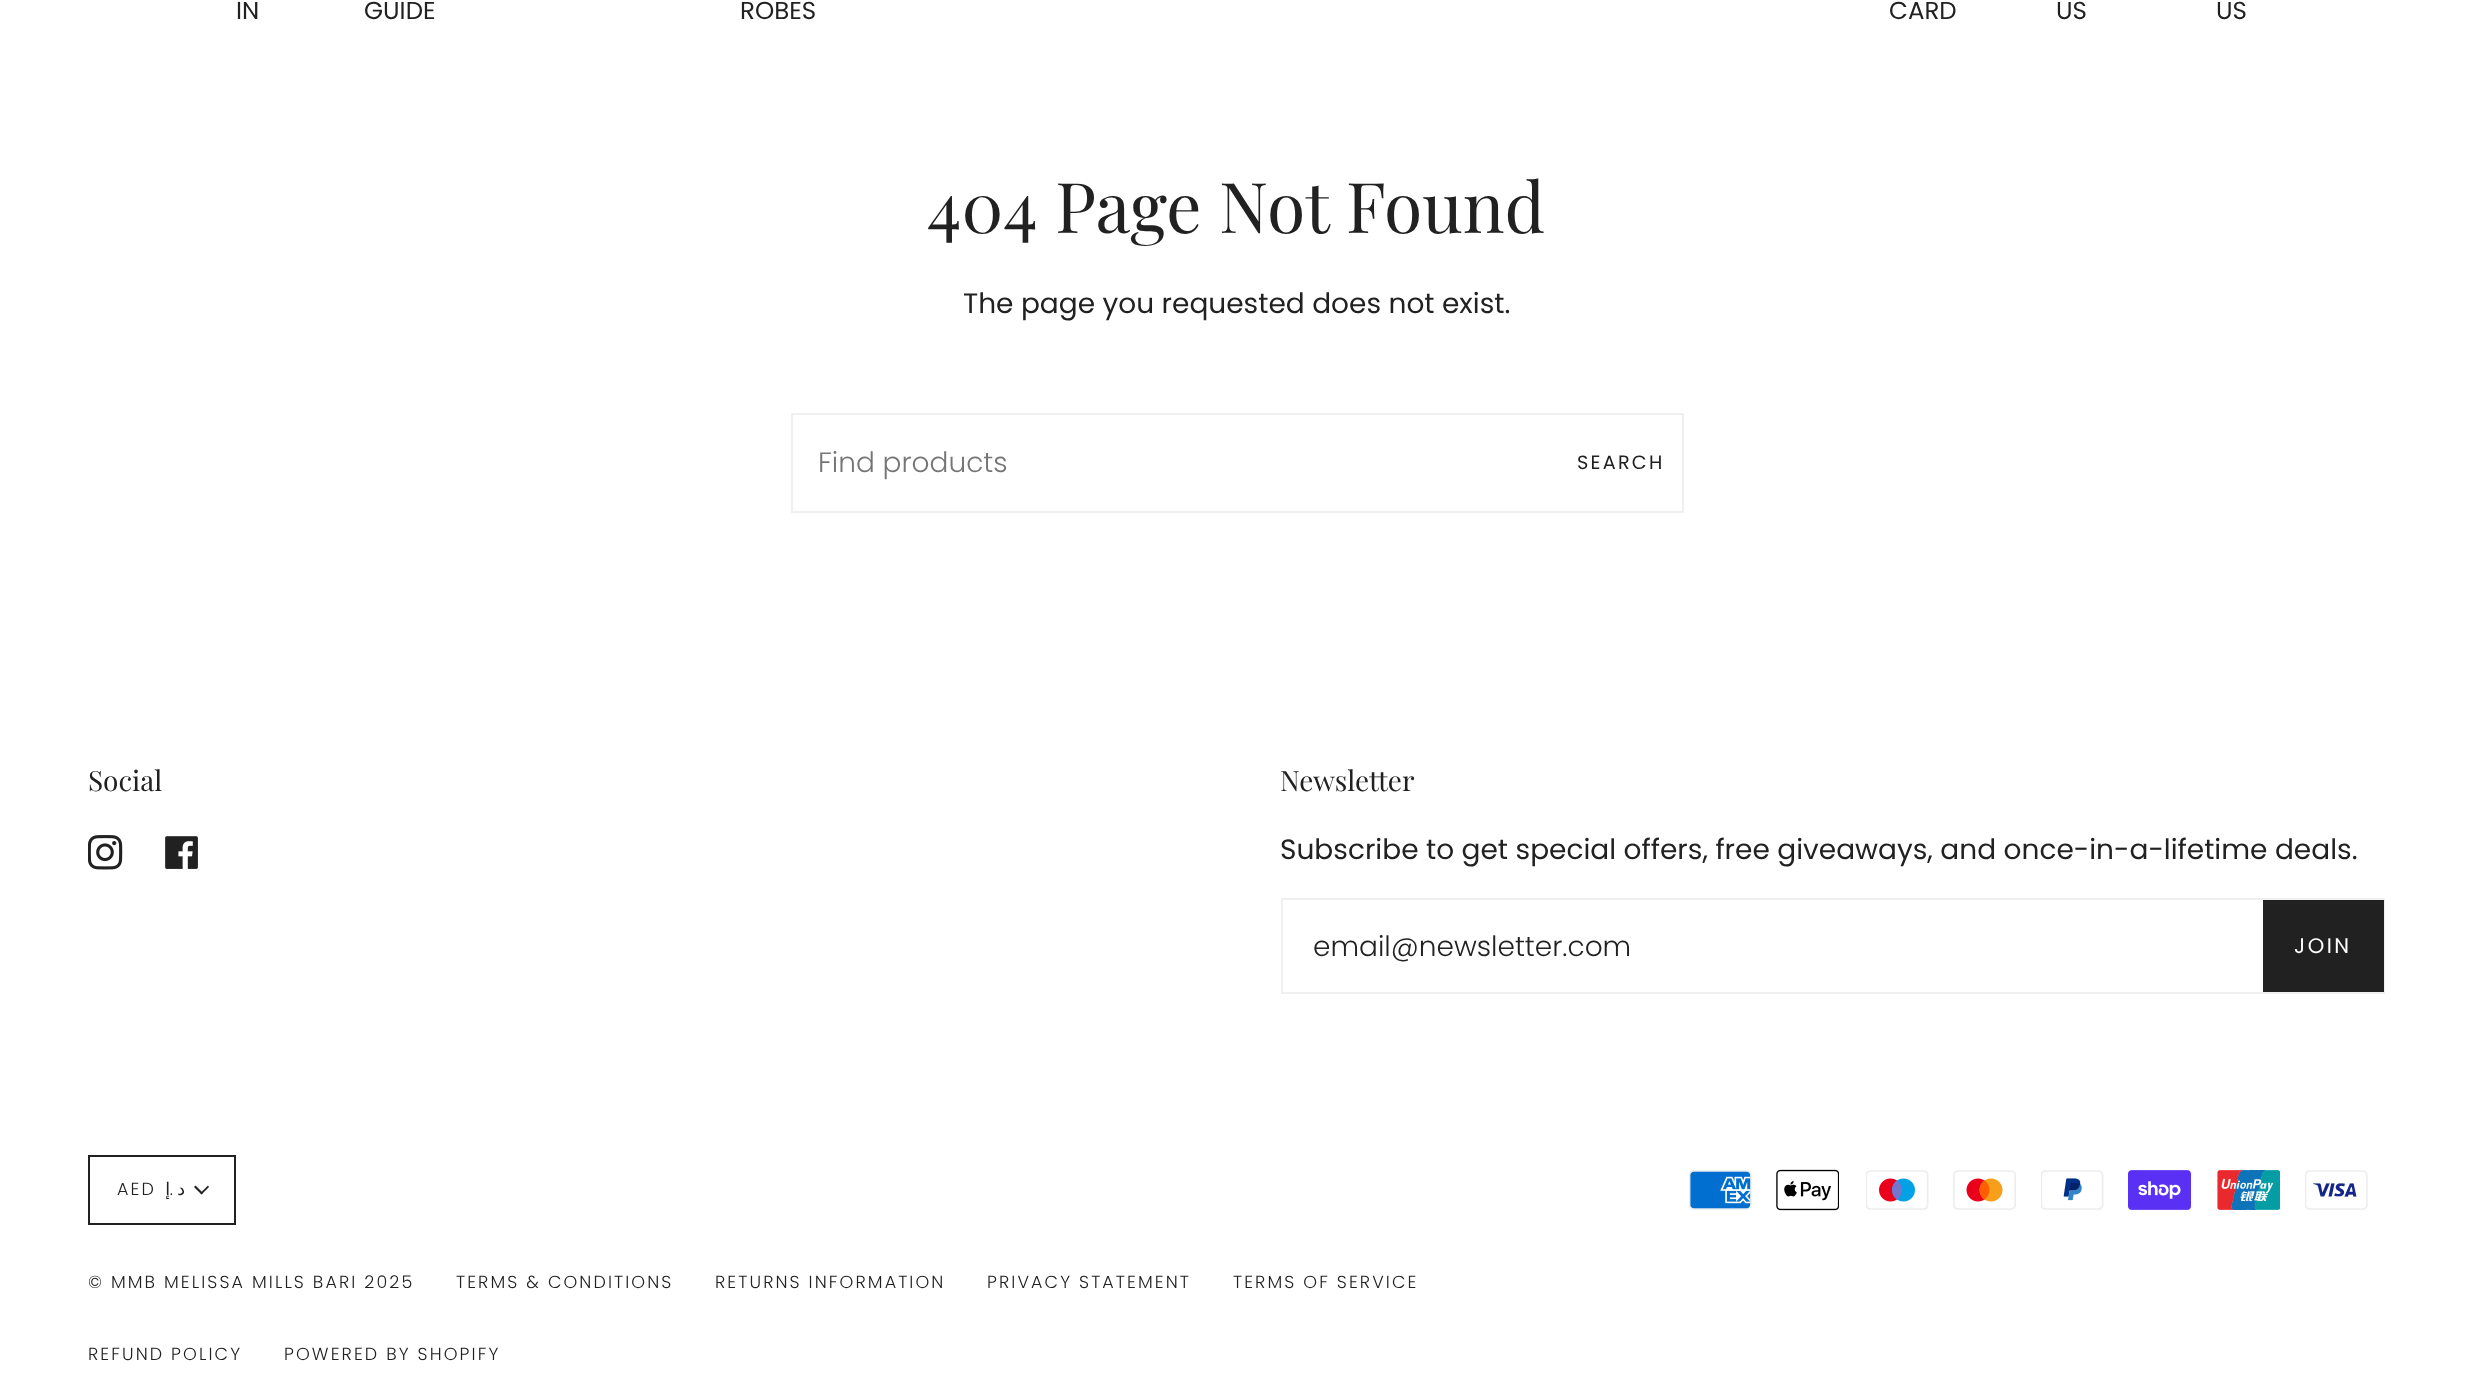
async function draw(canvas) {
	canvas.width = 2472;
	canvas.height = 1394;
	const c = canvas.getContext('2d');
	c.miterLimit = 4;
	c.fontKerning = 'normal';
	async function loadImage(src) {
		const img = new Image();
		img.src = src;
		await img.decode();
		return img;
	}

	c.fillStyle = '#fff';
	c.fillRect(0, 0, 2472, 1394);
	c.font = '24.5px Poppins';
	c.fillStyle = '#212121';
	for (const [text, x, y] of [
		['IN', 236, 19],
		['GUIDE', 364, 19],
		['ROBES', 740, 19],
		['CARD', 1889, 19],
		['US', 2056, 19],
		['US', 2216, 19],
	]) {
		c.fillText(text, x, y);
	}
	c.font = '69.75px Playfair Display';
	c.fillText('404 Page Not Found', 927, 233);
	c.font = '28px Poppins';
	c.fillText('The page you requested does not exist.', 963, 313);
	c.strokeStyle = '#f0f0f0';
	c.lineWidth = 2;
	c.strokeRect(792, 414, 891, 98);
	c.font = '300 28px Poppins';
	c.fillStyle = '#757575';
	c.fillText('Find products', 818, 472);
	c.letterSpacing = '2.25px';
	c.font = '19.25px Poppins';
	c.fillStyle = '#212121';
	c.fillText('SEARCH', 1577, 469);
	c.letterSpacing = '0px';
	c.font = '28px Playfair Display';
	c.fillText('Social', 88, 791);
	c.drawImage(await loadImage('img1.png'), 88, 835, 35, 35);
	c.drawImage(await loadImage('img2.png'), 165, 836, 33, 33);
	c.fillText('Newsletter', 1280, 791);
	c.font = '28px Poppins';
	c.fillText('Subscribe to get special offers, free giveaways, and once-in-a-lifetime deals.', 1280, 859);
	c.strokeRect(1282, 899, 1102, 94);
	c.font = '300 28px Poppins';
	c.fillText('email@newsletter.com', 1313, 956);
	c.fillRect(2263, 900, 121, 92);
	c.letterSpacing = '2.5px';
	c.font = '21px Poppins';
	c.fillStyle = '#fff';
	c.fillText('JOIN', 2294, 953);
	c.strokeStyle = '#212121';
	c.strokeRect(89, 1156, 146, 68);
	c.letterSpacing = '2.1px';
	c.font = '300 17.5px Poppins';
	c.fillStyle = '#212121';
	c.fillText('AED', 117, 1195);
	c.direction = 'rtl';
	c.font = '17.5px DejaVu Sans';
	c.fillText('إ', 170, 1195);
	c.font = '300 17.5px Poppins';
	c.fillText('.', 175, 1195);
	c.font = '17.5px DejaVu Sans';
	c.fillText('د', 185, 1195);
	c.beginPath();
	c.moveTo(200.5, 1193);
	c.lineTo(208, 1185.5);
	c.lineTo(209, 1187);
	c.lineTo(201.5, 1194.5);
	c.closePath();
	c.fill();
	c.beginPath();
	c.moveTo(194, 1187);
	c.lineTo(195.5, 1185.5);
	c.lineTo(203, 1193);
	c.lineTo(201.5, 1194.5);
	c.closePath();
	c.fill();
	c.direction = 'ltr';
	c.font = '300 17.5px Poppins';
	for (const [text, x, y] of [
		['© MMB MELISSA MILLS BARI 2025', 88, 1288],
		['TERMS & CONDITIONS', 456, 1288],
		['RETURNS INFORMATION', 715, 1288],
		['PRIVACY STATEMENT', 987, 1288],
		['TERMS OF SERVICE', 1233, 1288],
		['REFUND POLICY', 88, 1360],
		['POWERED BY SHOPIFY', 284, 1360],
	]) {
		c.fillText(text, x, y);
	}
	c.drawImage(await loadImage('img3.png'), 1689, 1170, 63, 40);
	c.drawImage(await loadImage('img4.png'), 1776, 1169, 63, 42);
	c.drawImage(await loadImage('img5.png'), 1866, 1170, 63, 40);
	c.drawImage(await loadImage('img6.png'), 1953, 1170, 63, 40);
	c.drawImage(await loadImage('img7.png'), 2041, 1170, 63, 40);
	c.drawImage(await loadImage('img8.png'), 2128, 1170, 63, 40);
	c.drawImage(await loadImage('img9.png'), 2217, 1170, 63, 40);
	c.drawImage(await loadImage('img10.png'), 2305, 1170, 63, 40);
}

draw(document.querySelector('canvas'));
